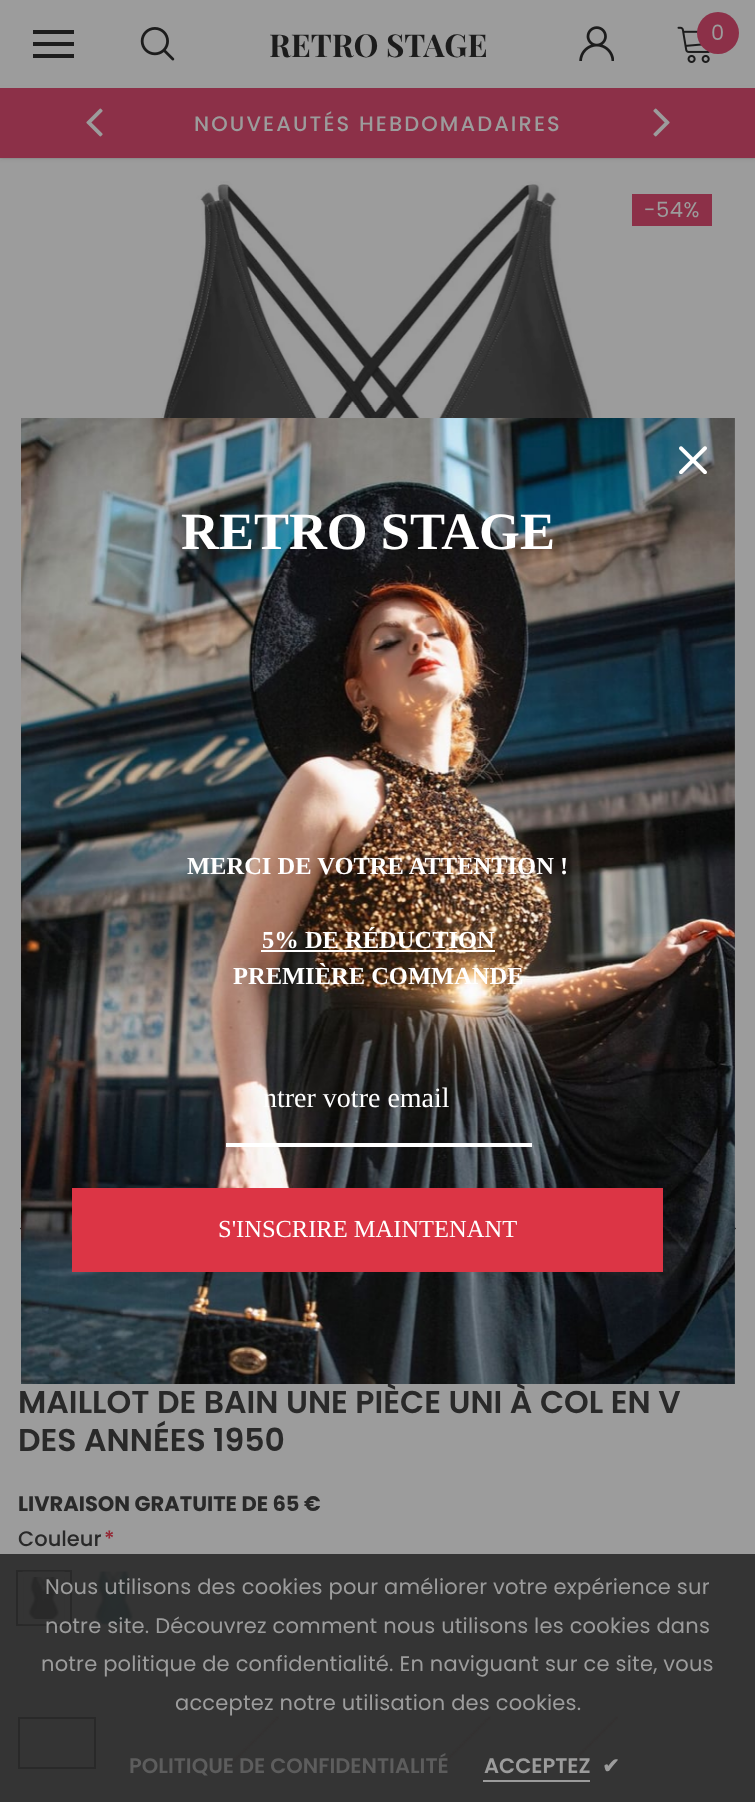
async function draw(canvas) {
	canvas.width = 755;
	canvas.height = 1802;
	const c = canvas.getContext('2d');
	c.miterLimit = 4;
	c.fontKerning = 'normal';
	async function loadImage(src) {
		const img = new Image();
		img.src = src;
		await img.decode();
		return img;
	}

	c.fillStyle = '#9c9c9c';
	c.fillRect(0, 0, 755, 1802);
	c.fillStyle = '#343434';
	c.fillRect(0, 1554, 755, 248);
	c.drawImage(await loadImage('img1.png'), 677, 26, 33, 37);
	c.fillStyle = '#8c3048';
	c.beginPath();
	c.arc(718, 33, 21, 0, 2 * Math.PI);
	c.fill();
	c.font = '21px Poppins';
	c.fillStyle = '#9c9c9c';
	c.fillText('0', 711, 40);
	c.fillStyle = '#1c1c1c1a';
	c.filter = 'blur(2px)';
	c.beginPath();
	c.rect(0, 89, 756, 70);
	c.fill();
	c.filter = 'none';
	c.strokeStyle = '#1c1c1c0f';
	c.lineWidth = 2;
	c.strokeRect(-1, 87, 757, 71);
	for (const [x, y, w, h, color] of [
		[0, 86, 755, 2, '#9c9c9c'],
		[33, 42, 41, 4, '#1c1c1c'],
		[33, 30, 41, 4, '#1c1c1c'],
		[33, 54, 41, 4, '#1c1c1c'],
	]) {
		c.fillStyle = color;
		c.fillRect(x, y, w, h);
	}
	c.drawImage(await loadImage('img2.png'), 140, 27, 35, 34);
	c.font = 'bold 31.5px Playfair Display';
	c.fillText('RETRO STAGE', 269, 57);
	c.drawImage(await loadImage('img3.png'), 579, 26, 35, 35);
	c.fillStyle = '#8c3048';
	c.fillRect(0, 88, 755, 70);
	c.drawImage(await loadImage('img4.png'), 86, 108, 17, 29);
	c.letterSpacing = '2.1px';
	c.font = '500 21px Poppins';
	c.fillStyle = '#9c9c9c';
	c.fillText('NOUVEAUTÉS HEBDOMADAIRES', 194, 131);
	c.drawImage(await loadImage('img5.png'), 653, 108, 17, 29);
	c.drawImage(await loadImage('img6.png'), 55, 181, 574, 237);
	c.fillStyle = '#8c3048';
	c.fillRect(632, 194, 80, 32);
	c.letterSpacing = '0.5px';
	c.font = '21px Poppins';
	c.fillStyle = '#9c9c9c';
	c.fillText('-54%', 644, 217);
	c.fillStyle = '#1c1c1c';
	c.beginPath();
	c.moveTo(20, 1228.5);
	c.lineTo(39.5, 1248);
	c.lineTo(39.5, 1243.5);
	c.lineTo(24.5, 1228.5);
	c.lineTo(39.5, 1213.5);
	c.lineTo(39.5, 1209);
	c.closePath();
	c.fill();
	c.beginPath();
	c.moveTo(733.5, 1226);
	c.lineTo(716.5, 1209);
	c.lineTo(716.5, 1213.5);
	c.lineTo(731.5, 1228.5);
	c.lineTo(716.5, 1243.5);
	c.lineTo(716.5, 1248);
	c.lineTo(736, 1228.5);
	c.closePath();
	c.fill();
	c.letterSpacing = '0px';
	c.font = '600 31.5px Poppins';
	c.fillStyle = '#292929';
	c.fillText('MAILLOT DE BAIN UNE PIÈCE UNI À COL EN V', 18, 1413);
	c.fillText('DES ANNÉES 1950', 18, 1451);
	c.font = 'bold 21px Poppins';
	c.fillText('LIVRAISON GRATUITE DE 65 €', 18, 1511);
	c.font = '500 21px Poppins';
	c.fillText('Couleur', 18, 1546);
	c.fillStyle = '#952734';
	c.fillText('*', 104, 1546);
	c.strokeStyle = '#292929';
	c.strokeRect(17, 1571, 54, 54);
	c.drawImage(await loadImage('img7.png'), 22, 1571, 44, 54);
	c.strokeStyle = '#343434';
	c.lineWidth = 5;
	c.strokeRect(20.5, 1574.5, 47, 47);
	c.drawImage(await loadImage('img8.png'), 87, 1571, 54, 54);
	c.strokeStyle = '#292929';
	c.lineWidth = 2;
	c.strokeRect(19, 1718, 76, 50);
	c.drawImage(await loadImage('img9.png'), 225, 1716, 54, 54);
	c.drawImage(await loadImage('img10.png'), 437, 1716, 54, 54);
	c.drawImage(await loadImage('img11.png'), 565, 1716, 53, 54);
	c.letterSpacing = '0.2px';
	c.font = '21px Poppins';
	c.fillStyle = '#9c9c9c';
	for (const [text, x, y] of [
		['Nous utilisons des cookies pour améliorer votre expérience sur', 45, 1594],
		['notre site. Découvrez comment nous utilisons les cookies dans', 45, 1633],
		['notre politique de confidentialité. En naviguant sur ce site, vous', 41, 1671],
		['acceptez notre utilisation des cookies.', 175, 1710],
	]) {
		c.fillText(text, x, y);
	}
	c.letterSpacing = '0px';
	c.font = '600 21px Poppins';
	c.fillStyle = '#5d5d5d';
	c.fillText('POLITIQUE DE CONFIDENTIALITÉ', 129, 1773);
	c.fillStyle = '#9c9c9c';
	c.fillText('ACCEPTEZ', 484, 1773);
	c.fillRect(483, 1780, 107, 2);
	c.font = 'bold 21px DejaVu Sans';
	c.fillText('✔', 602, 1773);
	c.drawImage(await loadImage('img13.png'), 21, 418, 714, 966);
	c.drawImage(await loadImage('img12.png'), 679, 446, 28, 28);
	c.font = 'bold 52.5px Liberation Serif';
	c.fillStyle = '#fff';
	c.fillText('RETRO STAGE', 181, 549);
	c.font = 'bold 24.5px Liberation Serif';
	c.fillText('MERCI DE VOTRE ATTENTION !', 187, 874);
	c.fillText('5% DE RÉDUCTION', 262, 948);
	c.fillRect(261, 950, 234, 2);
	c.fillText('PREMIÈRE COMMANDE', 233, 984);
	c.fillRect(226, 1143, 306, 4);
	c.font = '28px Liberation Serif';
	c.fillText('ntrer votre email', 263, 1107);
	c.fillStyle = '#dc3545';
	c.fillRect(72, 1188, 591, 84);
	c.font = '24.5px Liberation Serif';
	c.fillStyle = '#fff';
	c.fillText('S\'INSCRIRE MAINTENANT', 218, 1237);
}

draw(document.querySelector('canvas'));
